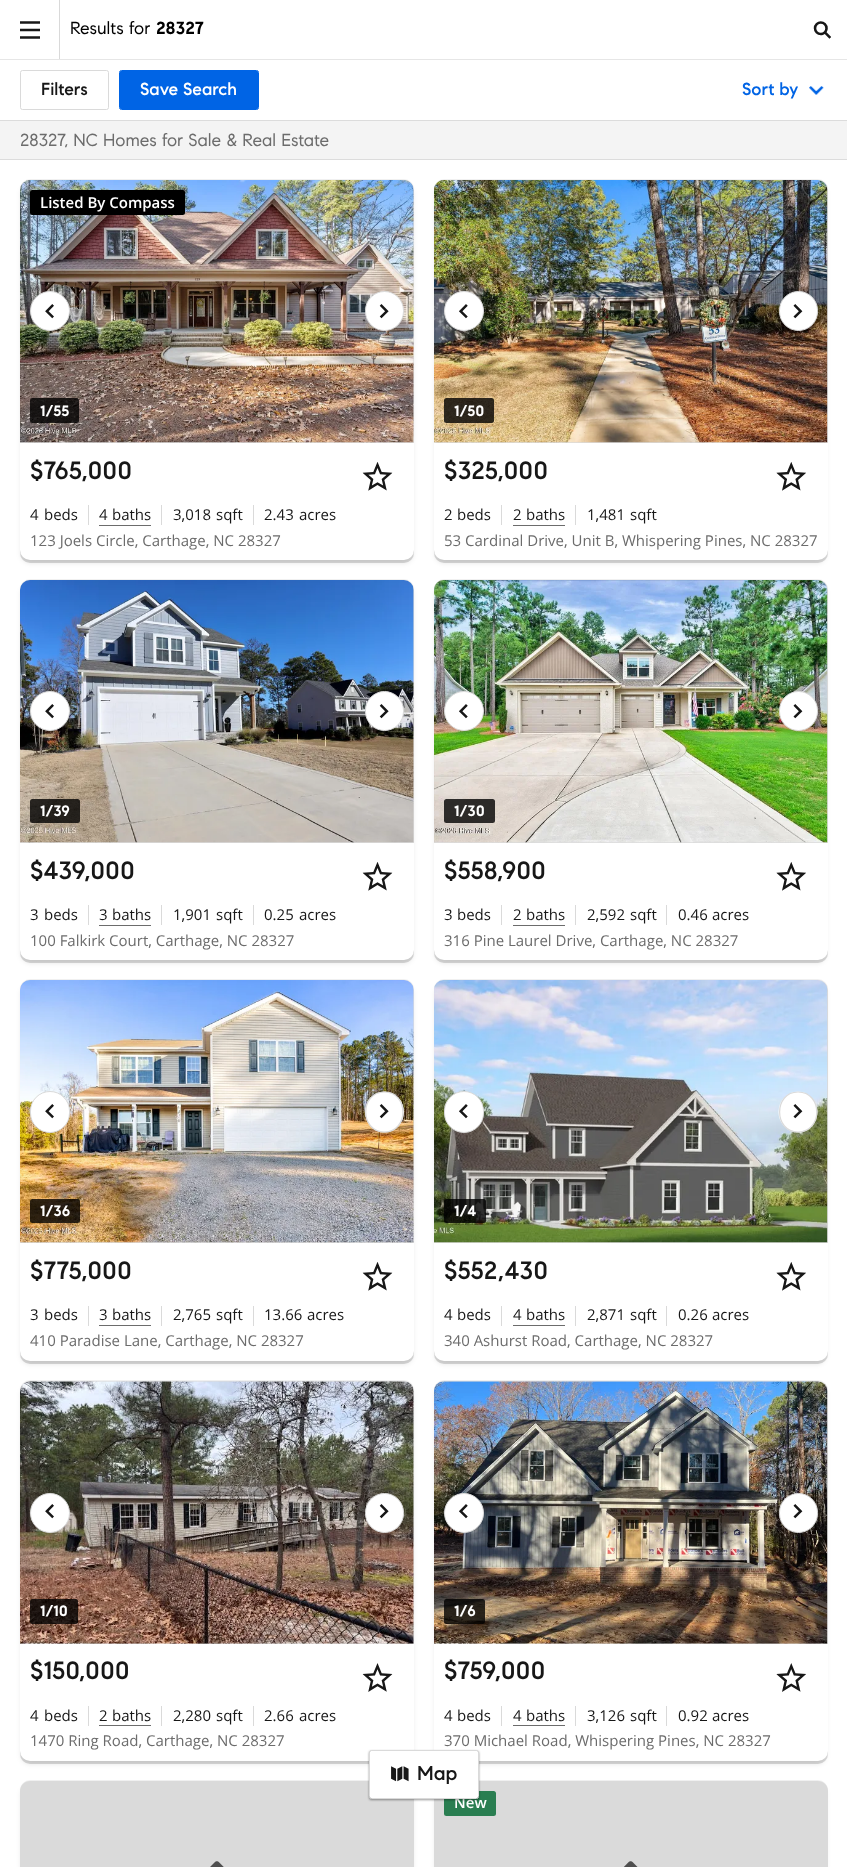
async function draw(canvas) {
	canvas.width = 847;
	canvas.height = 1867;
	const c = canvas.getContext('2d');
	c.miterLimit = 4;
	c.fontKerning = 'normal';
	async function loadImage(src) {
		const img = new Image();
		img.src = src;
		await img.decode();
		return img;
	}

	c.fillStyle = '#fff';
	c.fillRect(0, 0, 847, 1867);
	c.fillStyle = '#e6e6e6';
	c.fillRect(0, 59, 847, 1);
	c.fillStyle = '#d9d9d9';
	c.fillRect(59, 0, 1, 59);
	c.drawImage(await loadImage('img1.png'), 20, 21, 20, 18);
	c.font = '17.5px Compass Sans';
	c.fillStyle = '#000';
	c.fillText('Results for', 70, 34);
	c.font = 'bold 17.5px Compass Sans';
	c.fillText('28327', 156, 34);
	c.drawImage(await loadImage('img2.png'), 813, 21, 18, 18);
	c.beginPath();
	c.roundRect(20.5, 70.5, 88, 39, 2);
	c.strokeStyle = '#dadada';
	c.stroke();
	c.font = '500 17.5px Compass Sans';
	c.fillStyle = '#171717';
	c.fillText('Filters', 41, 95);
	c.fillStyle = '#0064e5';
	c.beginPath();
	c.roundRect(120, 71, 138, 38, 1);
	c.fill();
	c.beginPath();
	c.roundRect(119.5, 70.5, 139, 39, 2);
	c.strokeStyle = '#0064e5';
	c.stroke();
	c.fillStyle = '#fff';
	c.fillText('Save Search', 140, 95);
	c.fillStyle = '#0064e5';
	c.fillText('Sort by', 742, 95);
	c.drawImage(await loadImage('img3.png'), 809, 86, 15, 9);
	for (const [x, y, w, h, color] of [
		[0, 121, 847, 38, '#f4f4f4'],
		[0, 120, 847, 1, '#dcdcdc'],
		[0, 159, 847, 1, '#dcdcdc'],
	]) {
		c.fillStyle = color;
		c.fillRect(x, y, w, h);
	}
	c.font = '17.5px Compass Sans';
	c.fillStyle = '#6c6c6c';
	c.fillText('28327, NC Homes for Sale & Real Estate', 20, 146);
	c.fillStyle = '#0000000f';
	c.filter = 'blur(0.5px)';
	c.beginPath();
	c.roundRect(20, 179, 394, 380, 10);
	c.fill();
	c.filter = 'none';
	c.fillStyle = '#00000024';
	c.filter = 'blur(0.5px)';
	c.beginPath();
	c.roundRect(20, 183, 394, 380, 10);
	c.fill();
	c.filter = 'none';
	c.fillStyle = '#0000001a';
	c.filter = 'blur(2.5px)';
	c.beginPath();
	c.roundRect(21, 185, 392, 378, 9);
	c.fill();
	c.filter = 'none';
	c.fillStyle = '#fff';
	c.beginPath();
	c.roundRect(20, 180, 394, 380, 10);
	c.fill();
	c.fillStyle = '#dadada';
	c.beginPath();
	c.roundRect(20, 180, 394, 263, [10, 10, 0, 0]);
	c.fill();
	c.drawImage(await loadImage('img4.png'), 20, 180, 394, 263);
	c.fillStyle = '#000';
	c.beginPath();
	c.roundRect(30, 190, 155, 25, 2.5);
	c.fill();
	c.font = '600 15px Open Sans';
	c.fillStyle = '#fff';
	c.fillText('Listed By Compass', 40, 208);
	c.beginPath();
	c.arc(50, 311, 19.5, 0, 2 * Math.PI);
	c.fill();
	c.strokeStyle = '#dadada';
	c.stroke();
	c.drawImage(await loadImage('img5.png'), 45, 304, 9, 15);
	c.beginPath();
	c.roundRect(365.5, 291.5, 38, 39, 19);
	c.fill();
	c.stroke();
	c.drawImage(await loadImage('img6.png'), 379, 304, 10, 15);
	c.fillStyle = '#000000cc';
	c.beginPath();
	c.roundRect(30, 398, 49, 25, 2.5);
	c.fill();
	c.font = 'bold 15px Compass Sans';
	c.fillStyle = '#fff';
	c.fillText('1/55', 40, 416);
	c.font = '500 25px Compass Sans';
	c.fillStyle = '#171717';
	c.fillText('$765,000', 30, 479);
	c.drawImage(await loadImage('img7.png'), 362, 462, 31, 29);
	c.font = '15px Open Sans';
	c.fillText('4', 30, 520);
	c.fillText('beds', 44, 520);
	c.fillStyle = '#dadada';
	c.fillRect(88, 505, 1, 20);
	c.fillStyle = '#6c6c6c';
	c.fillRect(99, 525, 52, 1);
	c.fillStyle = '#171717';
	c.fillText('4', 99, 520);
	c.fillText('baths', 112, 520);
	c.fillStyle = '#dadada';
	c.fillRect(161, 505, 1, 20);
	c.fillStyle = '#171717';
	c.fillText('3,018', 173, 520);
	c.fillText('sqft', 216, 520);
	c.fillStyle = '#dadada';
	c.fillRect(253, 505, 1, 20);
	c.fillStyle = '#171717';
	c.fillText('2.43', 264, 520);
	c.fillText('acres', 299, 520);
	c.fillStyle = '#6c6c6c';
	c.fillText('123 Joels Circle, Carthage, NC 28327', 30, 546);
	c.fillStyle = '#0000000f';
	c.filter = 'blur(0.5px)';
	c.beginPath();
	c.roundRect(434, 179, 394, 380, 10);
	c.fill();
	c.filter = 'none';
	c.fillStyle = '#00000024';
	c.filter = 'blur(0.5px)';
	c.beginPath();
	c.roundRect(434, 183, 394, 380, 10);
	c.fill();
	c.filter = 'none';
	c.fillStyle = '#0000001a';
	c.filter = 'blur(2.5px)';
	c.beginPath();
	c.roundRect(435, 185, 391, 378, 9);
	c.fill();
	c.filter = 'none';
	c.fillStyle = '#fff';
	c.beginPath();
	c.roundRect(434, 180, 394, 380, 10);
	c.fill();
	c.fillStyle = '#dadada';
	c.beginPath();
	c.roundRect(434, 180, 394, 263, [10, 10, 0, 0]);
	c.fill();
	c.drawImage(await loadImage('img8.png'), 434, 180, 394, 263);
	c.fillStyle = '#fff';
	c.beginPath();
	c.arc(464, 311, 19.5, 0, 2 * Math.PI);
	c.fill();
	c.stroke();
	c.drawImage(await loadImage('img9.png'), 459, 304, 9, 15);
	c.beginPath();
	c.roundRect(779.5, 291.5, 38, 39, 19);
	c.fill();
	c.stroke();
	c.drawImage(await loadImage('img10.png'), 793, 304, 10, 15);
	c.fillStyle = '#000000cc';
	c.beginPath();
	c.roundRect(444, 398, 50, 25, 2.5);
	c.fill();
	c.font = 'bold 15px Compass Sans';
	c.fillStyle = '#fff';
	c.fillText('1/50', 454, 416);
	c.font = '500 25px Compass Sans';
	c.fillStyle = '#171717';
	c.fillText('$325,000', 444, 479);
	c.drawImage(await loadImage('img11.png'), 776, 462, 30, 29);
	c.font = '15px Open Sans';
	c.fillText('2', 444, 520);
	c.fillText('beds', 457, 520);
	c.fillStyle = '#dadada';
	c.fillRect(501, 505, 1, 20);
	c.fillStyle = '#6c6c6c';
	c.fillRect(513, 525, 52, 1);
	c.fillStyle = '#171717';
	c.fillText('2', 513, 520);
	c.fillText('baths', 526, 520);
	c.fillStyle = '#dadada';
	c.fillRect(575, 505, 1, 20);
	c.fillStyle = '#171717';
	c.fillText('1,481', 587, 520);
	c.fillText('sqft', 630, 520);
	c.fillStyle = '#6c6c6c';
	c.fillText('53 Cardinal Drive, Unit B, Whispering Pines, NC 28327', 444, 546);
	c.fillStyle = '#0000000f';
	c.filter = 'blur(0.5px)';
	c.beginPath();
	c.roundRect(20, 579, 394, 380, 10);
	c.fill();
	c.filter = 'none';
	c.fillStyle = '#00000024';
	c.filter = 'blur(0.5px)';
	c.beginPath();
	c.roundRect(20, 583, 394, 380, 10);
	c.fill();
	c.filter = 'none';
	c.fillStyle = '#0000001a';
	c.filter = 'blur(2.5px)';
	c.beginPath();
	c.roundRect(21, 585, 392, 378, 9);
	c.fill();
	c.filter = 'none';
	c.fillStyle = '#fff';
	c.beginPath();
	c.roundRect(20, 580, 394, 380, 10);
	c.fill();
	c.fillStyle = '#dadada';
	c.beginPath();
	c.roundRect(20, 580, 394, 263, [10, 10, 0, 0]);
	c.fill();
	c.drawImage(await loadImage('img12.png'), 20, 580, 394, 263);
	c.fillStyle = '#fff';
	c.beginPath();
	c.arc(50, 711, 19.5, 0, 2 * Math.PI);
	c.fill();
	c.stroke();
	c.drawImage(await loadImage('img5.png'), 45, 704, 9, 15);
	c.beginPath();
	c.roundRect(365.5, 691.5, 38, 39, 19);
	c.fill();
	c.stroke();
	c.drawImage(await loadImage('img6.png'), 379, 704, 10, 15);
	c.fillStyle = '#000000cc';
	c.beginPath();
	c.roundRect(30, 799, 50, 24, 2.5);
	c.fill();
	c.font = 'bold 15px Compass Sans';
	c.fillStyle = '#fff';
	c.fillText('1/39', 40, 816);
	c.font = '500 25px Compass Sans';
	c.fillStyle = '#171717';
	c.fillText('$439,000', 30, 879);
	c.drawImage(await loadImage('img7.png'), 362, 862, 31, 29);
	c.font = '15px Open Sans';
	c.fillText('3', 30, 920);
	c.fillText('beds', 44, 920);
	c.fillStyle = '#dadada';
	c.fillRect(88, 905, 1, 20);
	c.fillStyle = '#6c6c6c';
	c.fillRect(99, 925, 52, 1);
	c.fillStyle = '#171717';
	c.fillText('3', 99, 920);
	c.fillText('baths', 112, 920);
	c.fillStyle = '#dadada';
	c.fillRect(161, 905, 1, 20);
	c.fillStyle = '#171717';
	c.fillText('1,901', 173, 920);
	c.fillText('sqft', 216, 920);
	c.fillStyle = '#dadada';
	c.fillRect(253, 905, 1, 20);
	c.fillStyle = '#171717';
	c.fillText('0.25', 264, 920);
	c.fillText('acres', 299, 920);
	c.fillStyle = '#6c6c6c';
	c.fillText('100 Falkirk Court, Carthage, NC 28327', 30, 946);
	c.fillStyle = '#0000000f';
	c.filter = 'blur(0.5px)';
	c.beginPath();
	c.roundRect(434, 579, 394, 380, 10);
	c.fill();
	c.filter = 'none';
	c.fillStyle = '#00000024';
	c.filter = 'blur(0.5px)';
	c.beginPath();
	c.roundRect(434, 583, 394, 380, 10);
	c.fill();
	c.filter = 'none';
	c.fillStyle = '#0000001a';
	c.filter = 'blur(2.5px)';
	c.beginPath();
	c.roundRect(435, 585, 391, 378, 9);
	c.fill();
	c.filter = 'none';
	c.fillStyle = '#fff';
	c.beginPath();
	c.roundRect(434, 580, 394, 380, 10);
	c.fill();
	c.fillStyle = '#dadada';
	c.beginPath();
	c.roundRect(434, 580, 394, 263, [10, 10, 0, 0]);
	c.fill();
	c.drawImage(await loadImage('img13.png'), 434, 580, 394, 263);
	c.fillStyle = '#fff';
	c.beginPath();
	c.arc(464, 711, 19.5, 0, 2 * Math.PI);
	c.fill();
	c.stroke();
	c.drawImage(await loadImage('img9.png'), 459, 704, 9, 15);
	c.beginPath();
	c.roundRect(779.5, 691.5, 38, 39, 19);
	c.fill();
	c.stroke();
	c.drawImage(await loadImage('img10.png'), 793, 704, 10, 15);
	c.fillStyle = '#000000cc';
	c.beginPath();
	c.roundRect(444, 799, 51, 24, 2.5);
	c.fill();
	c.font = 'bold 15px Compass Sans';
	c.fillStyle = '#fff';
	c.fillText('1/30', 454, 816);
	c.font = '500 25px Compass Sans';
	c.fillStyle = '#171717';
	c.fillText('$558,900', 444, 879);
	c.drawImage(await loadImage('img11.png'), 776, 862, 30, 29);
	c.font = '15px Open Sans';
	c.fillText('3', 444, 920);
	c.fillText('beds', 457, 920);
	c.fillStyle = '#dadada';
	c.fillRect(501, 905, 1, 20);
	c.fillStyle = '#6c6c6c';
	c.fillRect(513, 925, 52, 1);
	c.fillStyle = '#171717';
	c.fillText('2', 513, 920);
	c.fillText('baths', 526, 920);
	c.fillStyle = '#dadada';
	c.fillRect(575, 905, 1, 20);
	c.fillStyle = '#171717';
	c.fillText('2,592', 587, 920);
	c.fillText('sqft', 630, 920);
	c.fillStyle = '#dadada';
	c.fillRect(666, 905, 1, 20);
	c.fillStyle = '#171717';
	c.fillText('0.46', 678, 920);
	c.fillText('acres', 712, 920);
	c.fillStyle = '#6c6c6c';
	c.fillText('316 Pine Laurel Drive, Carthage, NC 28327', 444, 946);
	c.fillStyle = '#0000000f';
	c.filter = 'blur(0.5px)';
	c.beginPath();
	c.roundRect(20, 979, 394, 381, 10);
	c.fill();
	c.filter = 'none';
	c.fillStyle = '#00000024';
	c.filter = 'blur(0.5px)';
	c.beginPath();
	c.roundRect(20, 983, 394, 381, 10);
	c.fill();
	c.filter = 'none';
	c.fillStyle = '#0000001a';
	c.filter = 'blur(2.5px)';
	c.beginPath();
	c.roundRect(21, 985, 392, 379, 9);
	c.fill();
	c.filter = 'none';
	c.fillStyle = '#fff';
	c.beginPath();
	c.roundRect(20, 980, 394, 381, 10);
	c.fill();
	c.fillStyle = '#dadada';
	c.beginPath();
	c.roundRect(20, 980, 394, 263, [10, 10, 0, 0]);
	c.fill();
	c.drawImage(await loadImage('img14.png'), 20, 980, 394, 263);
	c.fillStyle = '#fff';
	c.beginPath();
	c.roundRect(30.5, 1091.5, 39, 41, 19.5);
	c.fill();
	c.stroke();
	c.drawImage(await loadImage('img5.png'), 45, 1104, 9, 15);
	c.beginPath();
	c.ellipse(384.5, 1112, 19.5, 20.5, 0, 0, 2 * Math.PI);
	c.fill();
	c.beginPath();
	c.moveTo(384.5, 1092);
	c.bezierCurveTo(409, 1092, 409, 1132, 384.5, 1132);
	c.bezierCurveTo(359.5, 1132, 359.5, 1092, 384.5, 1092);
	c.closePath();
	c.lineWidth = 1.2;
	c.stroke();
	c.drawImage(await loadImage('img6.png'), 379, 1104, 10, 15);
	c.fillStyle = '#000000cc';
	c.beginPath();
	c.roundRect(30, 1199, 50, 24, 2.5);
	c.fill();
	c.font = 'bold 15px Compass Sans';
	c.fillStyle = '#fff';
	c.fillText('1/36', 40, 1216);
	c.font = '500 25px Compass Sans';
	c.fillStyle = '#171717';
	c.fillText('$775,000', 30, 1279);
	c.drawImage(await loadImage('img15.png'), 362, 1262, 31, 29);
	c.font = '15px Open Sans';
	c.fillText('3', 30, 1320);
	c.fillText('beds', 44, 1320);
	c.fillStyle = '#dadada';
	c.fillRect(88, 1306, 1, 20);
	c.fillStyle = '#6c6c6c';
	c.fillRect(99, 1325, 52, 1);
	c.fillStyle = '#171717';
	c.fillText('3', 99, 1320);
	c.fillText('baths', 112, 1320);
	c.fillStyle = '#dadada';
	c.fillRect(161, 1306, 1, 20);
	c.fillStyle = '#171717';
	c.fillText('2,765', 173, 1320);
	c.fillText('sqft', 216, 1320);
	c.fillStyle = '#dadada';
	c.fillRect(253, 1306, 1, 20);
	c.fillStyle = '#171717';
	c.fillText('13.66', 264, 1320);
	c.fillText('acres', 307, 1320);
	c.fillStyle = '#6c6c6c';
	c.fillText('410 Paradise Lane, Carthage, NC 28327', 30, 1346);
	c.fillStyle = '#0000000f';
	c.filter = 'blur(0.5px)';
	c.beginPath();
	c.roundRect(434, 979, 394, 381, 10);
	c.fill();
	c.filter = 'none';
	c.fillStyle = '#00000024';
	c.filter = 'blur(0.5px)';
	c.beginPath();
	c.roundRect(434, 983, 394, 381, 10);
	c.fill();
	c.filter = 'none';
	c.fillStyle = '#0000001a';
	c.filter = 'blur(2.5px)';
	c.beginPath();
	c.roundRect(435, 985, 391, 379, 9);
	c.fill();
	c.filter = 'none';
	c.fillStyle = '#fff';
	c.beginPath();
	c.roundRect(434, 980, 394, 381, 10);
	c.fill();
	c.fillStyle = '#dadada';
	c.beginPath();
	c.roundRect(434, 980, 394, 263, [10, 10, 0, 0]);
	c.fill();
	c.drawImage(await loadImage('img16.png'), 434, 980, 394, 263);
	c.fillStyle = '#fff';
	c.beginPath();
	c.roundRect(444.5, 1091.5, 39, 41, 19.5);
	c.fill();
	c.lineWidth = 1;
	c.stroke();
	c.drawImage(await loadImage('img9.png'), 459, 1104, 9, 15);
	c.beginPath();
	c.ellipse(798, 1112, 19.5, 20.5, 0, 0, 2 * Math.PI);
	c.fill();
	c.beginPath();
	c.moveTo(798, 1092);
	c.bezierCurveTo(823, 1092, 823, 1132, 798, 1132);
	c.bezierCurveTo(773.5, 1132, 773.5, 1092, 798, 1092);
	c.closePath();
	c.lineWidth = 1.2;
	c.stroke();
	c.drawImage(await loadImage('img10.png'), 793, 1104, 10, 15);
	c.fillStyle = '#000000cc';
	c.beginPath();
	c.roundRect(444, 1199, 42, 24, 2.5);
	c.fill();
	c.font = 'bold 15px Compass Sans';
	c.fillStyle = '#fff';
	c.fillText('1/4', 454, 1216);
	c.font = '500 25px Compass Sans';
	c.fillStyle = '#171717';
	c.fillText('$552,430', 444, 1279);
	c.drawImage(await loadImage('img17.png'), 776, 1262, 30, 29);
	c.font = '15px Open Sans';
	c.fillText('4', 444, 1320);
	c.fillText('beds', 457, 1320);
	c.fillStyle = '#dadada';
	c.fillRect(501, 1306, 1, 20);
	c.fillStyle = '#6c6c6c';
	c.fillRect(513, 1325, 52, 1);
	c.fillStyle = '#171717';
	c.fillText('4', 513, 1320);
	c.fillText('baths', 526, 1320);
	c.fillStyle = '#dadada';
	c.fillRect(575, 1306, 1, 20);
	c.fillStyle = '#171717';
	c.fillText('2,871', 587, 1320);
	c.fillText('sqft', 630, 1320);
	c.fillStyle = '#dadada';
	c.fillRect(666, 1306, 1, 20);
	c.fillStyle = '#171717';
	c.fillText('0.26', 678, 1320);
	c.fillText('acres', 712, 1320);
	c.fillStyle = '#6c6c6c';
	c.fillText('340 Ashurst Road, Carthage, NC 28327', 444, 1346);
	c.fillStyle = '#0000000f';
	c.filter = 'blur(0.5px)';
	c.beginPath();
	c.roundRect(20, 1380, 394, 380, 10);
	c.fill();
	c.filter = 'none';
	c.fillStyle = '#00000024';
	c.filter = 'blur(0.5px)';
	c.beginPath();
	c.roundRect(20, 1384, 394, 380, 10);
	c.fill();
	c.filter = 'none';
	c.fillStyle = '#0000001a';
	c.filter = 'blur(2.5px)';
	c.beginPath();
	c.roundRect(21, 1386, 392, 378, 9);
	c.fill();
	c.filter = 'none';
	c.fillStyle = '#fff';
	c.beginPath();
	c.roundRect(20, 1381, 394, 380, 10);
	c.fill();
	c.fillStyle = '#dadada';
	c.beginPath();
	c.roundRect(20, 1381, 394, 263, [10, 10, 0, 0]);
	c.fill();
	c.drawImage(await loadImage('img18.png'), 20, 1381, 394, 263);
	c.fillStyle = '#fff';
	c.beginPath();
	c.arc(50, 1513, 19.5, 0, 2 * Math.PI);
	c.fill();
	c.lineWidth = 1;
	c.stroke();
	c.drawImage(await loadImage('img5.png'), 45, 1504, 9, 15);
	c.beginPath();
	c.roundRect(365.5, 1493.5, 38, 39, 19);
	c.fill();
	c.stroke();
	c.drawImage(await loadImage('img6.png'), 379, 1504, 10, 15);
	c.fillStyle = '#000000cc';
	c.beginPath();
	c.roundRect(30, 1599, 48, 25, 2.5);
	c.fill();
	c.font = 'bold 15px Compass Sans';
	c.fillStyle = '#fff';
	c.fillText('1/10', 40, 1616);
	c.font = '500 25px Compass Sans';
	c.fillStyle = '#171717';
	c.fillText('$150,000', 30, 1679);
	c.drawImage(await loadImage('img19.png'), 362, 1663, 31, 29);
	c.font = '15px Open Sans';
	c.fillText('4', 30, 1721);
	c.fillText('beds', 44, 1721);
	c.fillStyle = '#dadada';
	c.fillRect(88, 1706, 1, 20);
	c.fillStyle = '#6c6c6c';
	c.fillRect(99, 1725, 52, 1);
	c.fillStyle = '#171717';
	c.fillText('2', 99, 1721);
	c.fillText('baths', 112, 1721);
	c.fillStyle = '#dadada';
	c.fillRect(161, 1706, 1, 20);
	c.fillStyle = '#171717';
	c.fillText('2,280', 173, 1721);
	c.fillText('sqft', 216, 1721);
	c.fillStyle = '#dadada';
	c.fillRect(253, 1706, 1, 20);
	c.fillStyle = '#171717';
	c.fillText('2.66', 264, 1721);
	c.fillText('acres', 299, 1721);
	c.fillStyle = '#6c6c6c';
	c.fillText('1470 Ring Road, Carthage, NC 28327', 30, 1746);
	c.fillStyle = '#0000000f';
	c.filter = 'blur(0.5px)';
	c.beginPath();
	c.roundRect(434, 1380, 394, 380, 10);
	c.fill();
	c.filter = 'none';
	c.fillStyle = '#00000024';
	c.filter = 'blur(0.5px)';
	c.beginPath();
	c.roundRect(434, 1384, 394, 380, 10);
	c.fill();
	c.filter = 'none';
	c.fillStyle = '#0000001a';
	c.filter = 'blur(2.5px)';
	c.beginPath();
	c.roundRect(435, 1386, 391, 378, 9);
	c.fill();
	c.filter = 'none';
	c.fillStyle = '#fff';
	c.beginPath();
	c.roundRect(434, 1381, 394, 380, 10);
	c.fill();
	c.fillStyle = '#dadada';
	c.beginPath();
	c.roundRect(434, 1381, 394, 263, [10, 10, 0, 0]);
	c.fill();
	c.drawImage(await loadImage('img20.png'), 434, 1381, 394, 263);
	c.fillStyle = '#fff';
	c.beginPath();
	c.arc(464, 1513, 19.5, 0, 2 * Math.PI);
	c.fill();
	c.stroke();
	c.drawImage(await loadImage('img9.png'), 459, 1504, 9, 15);
	c.beginPath();
	c.roundRect(779.5, 1493.5, 38, 39, 19);
	c.fill();
	c.stroke();
	c.drawImage(await loadImage('img10.png'), 793, 1504, 10, 15);
	c.fillStyle = '#000000cc';
	c.beginPath();
	c.roundRect(444, 1599, 41, 25, 2.5);
	c.fill();
	c.font = 'bold 15px Compass Sans';
	c.fillStyle = '#fff';
	c.fillText('1/6', 454, 1616);
	c.font = '500 25px Compass Sans';
	c.fillStyle = '#171717';
	c.fillText('$759,000', 444, 1679);
	c.drawImage(await loadImage('img21.png'), 776, 1663, 30, 29);
	c.font = '15px Open Sans';
	c.fillText('4', 444, 1721);
	c.fillText('beds', 457, 1721);
	c.fillStyle = '#dadada';
	c.fillRect(501, 1706, 1, 20);
	c.fillStyle = '#6c6c6c';
	c.fillRect(513, 1725, 52, 1);
	c.fillStyle = '#171717';
	c.fillText('4', 513, 1721);
	c.fillText('baths', 526, 1721);
	c.fillStyle = '#dadada';
	c.fillRect(575, 1706, 1, 20);
	c.fillStyle = '#171717';
	c.fillText('3,126', 587, 1721);
	c.fillText('sqft', 630, 1721);
	c.fillStyle = '#dadada';
	c.fillRect(666, 1706, 1, 20);
	c.fillStyle = '#171717';
	c.fillText('0.92', 678, 1721);
	c.fillText('acres', 712, 1721);
	c.fillStyle = '#6c6c6c';
	c.fillText('370 Michael Road, Whispering Pines, NC 28327', 444, 1746);
	c.fillStyle = '#0000000f';
	c.filter = 'blur(0.5px)';
	c.beginPath();
	c.roundRect(20, 1780, 394, 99, 10);
	c.fill();
	c.filter = 'none';
	c.fillStyle = '#0000001a';
	c.filter = 'blur(2.5px)';
	c.beginPath();
	c.roundRect(21, 1786, 392, 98, 9);
	c.fill();
	c.filter = 'none';
	c.drawImage(await loadImage('img22.png'), 20, 1781, 394, 86);
	c.fillStyle = '#0000000f';
	c.filter = 'blur(0.5px)';
	c.beginPath();
	c.roundRect(434, 1780, 394, 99, 10);
	c.fill();
	c.filter = 'none';
	c.fillStyle = '#00000024';
	c.filter = 'blur(0.5px)';
	c.beginPath();
	c.roundRect(434, 1784, 394, 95, 10);
	c.fill();
	c.filter = 'none';
	c.fillStyle = '#0000001a';
	c.filter = 'blur(2.5px)';
	c.beginPath();
	c.roundRect(435, 1786, 391, 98, 9);
	c.fill();
	c.filter = 'none';
	c.drawImage(await loadImage('img23.png'), 434, 1781, 394, 86);
	c.fillStyle = '#2a7e51';
	c.beginPath();
	c.roundRect(444, 1791, 52, 25, 2.5);
	c.fill();
	c.font = '600 15px Open Sans';
	c.fillStyle = '#fff';
	c.fillText('New', 454, 1808);
	c.fillStyle = '#00000066';
	c.filter = 'blur(1px)';
	c.beginPath();
	c.roundRect(369, 1751, 110, 49, 2.5);
	c.fill();
	c.filter = 'none';
	c.fillStyle = '#fff';
	c.beginPath();
	c.roundRect(370, 1751, 108, 47, 1);
	c.fill();
	c.beginPath();
	c.roundRect(369.5, 1750.5, 109, 48, 2);
	c.stroke();
	c.drawImage(await loadImage('img24.png'), 391, 1766, 18, 16);
	c.font = '500 20px Compass Sans';
	c.fillStyle = '#171717';
	c.fillText('Map', 417, 1780);
}

draw(document.querySelector('canvas'));
